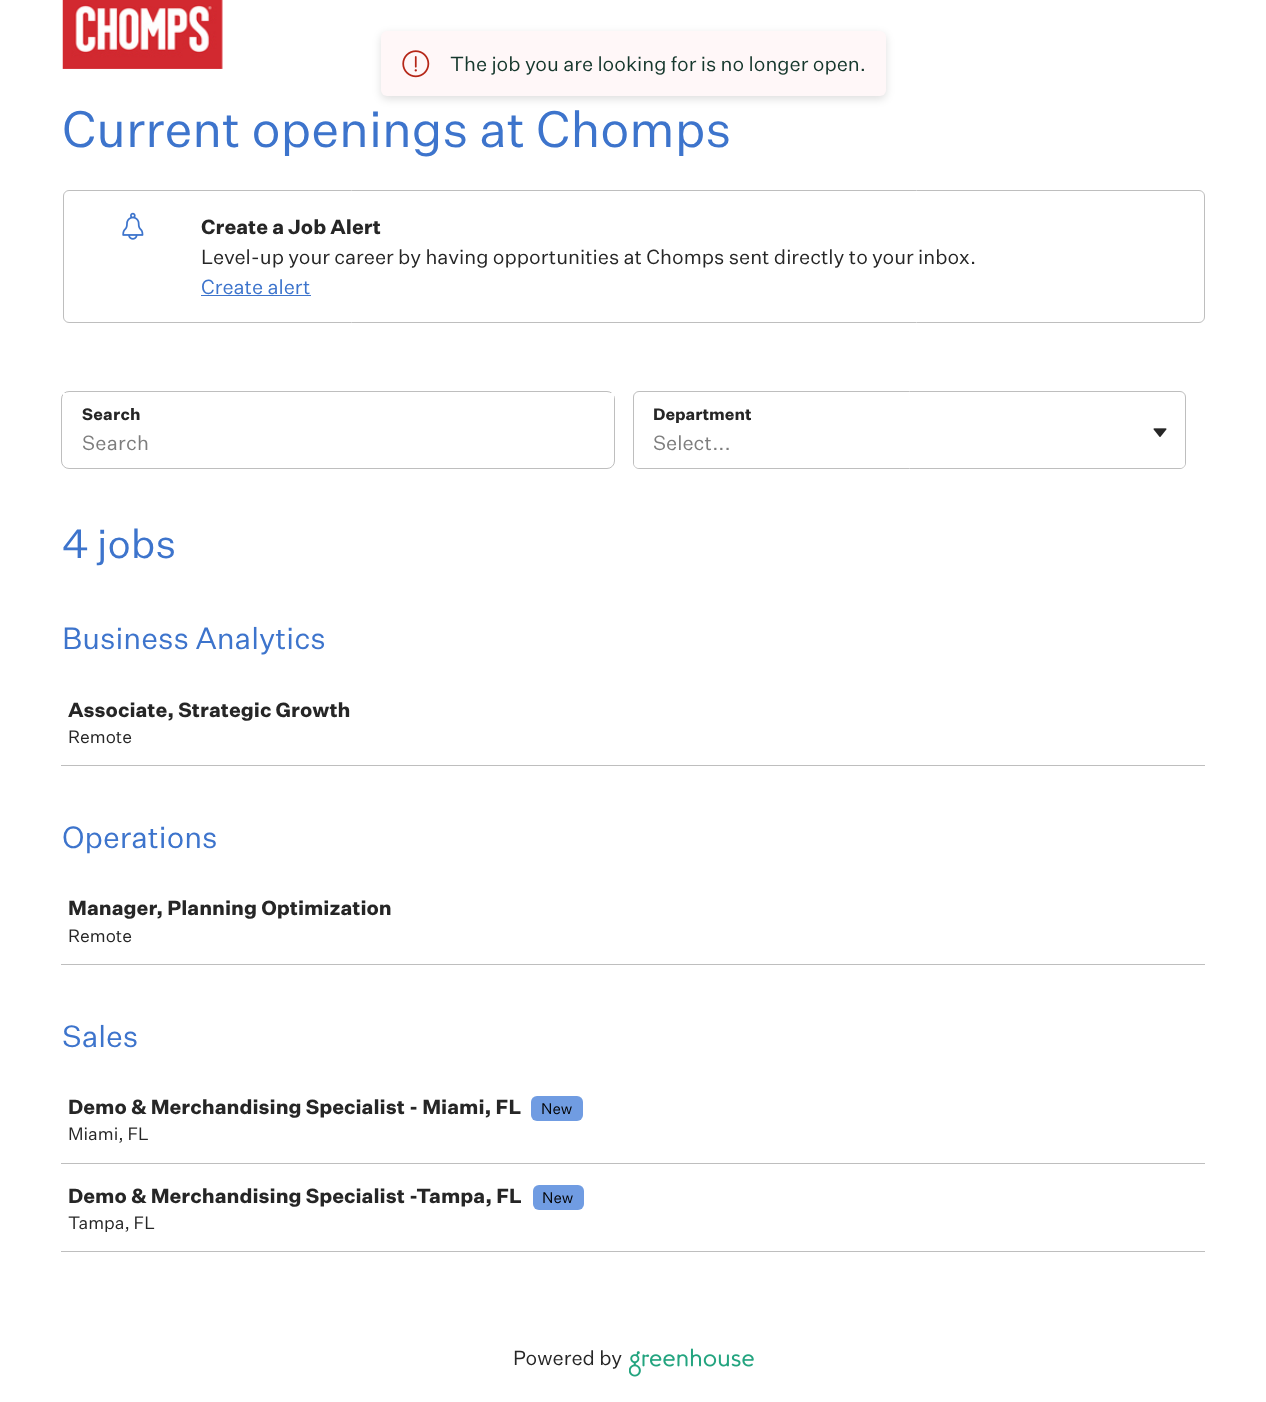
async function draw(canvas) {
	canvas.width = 1266;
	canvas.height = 1402;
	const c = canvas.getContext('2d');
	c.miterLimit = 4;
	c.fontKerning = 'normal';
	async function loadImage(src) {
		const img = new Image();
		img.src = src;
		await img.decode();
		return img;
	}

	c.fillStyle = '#fff';
	c.fillRect(0, 0, 1266, 1402);
	c.fillStyle = '#00000021';
	c.filter = 'blur(4px)';
	c.beginPath();
	c.roundRect(381, 34, 505, 65, 6);
	c.fill();
	c.filter = 'none';
	c.fillStyle = '#fff7f8';
	c.beginPath();
	c.roundRect(381, 31, 505, 65, 6);
	c.fill();
	c.drawImage(await loadImage('img1.png'), 402, 50, 28, 28);
	c.font = '20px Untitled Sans';
	c.fillStyle = '#15372c';
	c.fillText('The job you are looking for is no longer open.', 450, 71);
	c.drawImage(await loadImage('img2.png'), 62, 0, 161, 69);
	c.font = '50px Untitled Sans';
	c.fillStyle = '#3d74cc';
	c.fillText('Current openings at Chomps', 62, 147);
	c.beginPath();
	c.roundRect(63.5, 190.5, 1141, 132, 5.5);
	c.strokeStyle = '#bebebe';
	c.stroke();
	c.drawImage(await loadImage('img3.png'), 122, 212, 22, 28);
	c.font = 'bold 20px Untitled Sans';
	c.fillStyle = '#262626';
	c.fillText('Create a Job Alert', 201, 234);
	c.font = '20px Untitled Sans';
	c.fillText('Level-up your career by having opportunities at Chomps sent directly to your inbox.', 201, 264);
	c.fillStyle = '#3d74cc';
	c.fillText('Create alert', 201, 294);
	c.fillRect(201, 295, 110, 1);
	c.beginPath();
	c.roundRect(61.5, 391.5, 553, 77, 7.5);
	c.stroke();
	c.fillStyle = '#fff';
	c.fillRect(63, 393, 551, 6);
	c.letterSpacing = '0.25px';
	c.font = 'bold 16.25px Untitled Sans';
	c.fillStyle = '#262626';
	c.fillText('Search', 82, 420);
	c.font = '20px Untitled Sans';
	c.fillStyle = '#7d7d7d';
	c.fillText('Search', 82, 450);
	c.beginPath();
	c.roundRect(633.5, 391.5, 552, 77, 5.5);
	c.stroke();
	c.letterSpacing = '0px';
	c.font = 'bold 16.25px Untitled Sans';
	c.fillStyle = '#262626';
	c.fillText('Department', 653, 420);
	c.fillStyle = '#fff';
	c.beginPath();
	c.roundRect(634, 425, 551, 43, 5);
	c.fill();
	c.drawImage(await loadImage('img4.png'), 1153, 428, 14, 9);
	c.font = '20px Untitled Sans';
	c.fillStyle = '#7d7d7d';
	c.fillText('Select...', 653, 450);
	c.font = '40px Untitled Sans';
	c.fillStyle = '#3d74cc';
	c.fillText('4 jobs', 62, 558);
	c.font = '30px Untitled Sans';
	c.fillText('Business Analytics', 62, 649);
	c.fillStyle = '#bebebe';
	c.fillRect(61, 765, 1144, 1);
	c.font = 'bold 20px Untitled Sans';
	c.fillStyle = '#262626';
	c.fillText('Associate, Strategic Growth', 68, 717);
	c.font = '17.5px Untitled Sans';
	c.fillText('Remote', 68, 743);
	c.font = '30px Untitled Sans';
	c.fillStyle = '#3d74cc';
	c.fillText('Operations', 62, 848);
	c.fillStyle = '#bebebe';
	c.fillRect(61, 964, 1144, 1);
	c.font = 'bold 20px Untitled Sans';
	c.fillStyle = '#262626';
	c.fillText('Manager, Planning Optimization', 68, 915);
	c.font = '17.5px Untitled Sans';
	c.fillText('Remote', 68, 942);
	c.font = '30px Untitled Sans';
	c.fillStyle = '#3d74cc';
	c.fillText('Sales', 62, 1047);
	c.fillStyle = '#bebebe';
	c.fillRect(61, 1163, 1144, 1);
	c.font = 'bold 20px Untitled Sans';
	c.fillStyle = '#262626';
	c.fillText('Demo & Merchandising Specialist - Miami, FL', 68, 1114);
	c.fillStyle = '#709ce2';
	c.beginPath();
	c.roundRect(531, 1096, 52, 25, 6);
	c.fill();
	c.font = '15px Untitled Sans';
	c.fillStyle = '#000';
	c.fillText('New', 541, 1114);
	c.font = '17.5px Untitled Sans';
	c.fillStyle = '#262626';
	c.fillText('Miami, FL', 68, 1140);
	c.fillStyle = '#bebebe';
	c.fillRect(61, 1251, 1144, 1);
	c.font = 'bold 20px Untitled Sans';
	c.fillStyle = '#262626';
	c.fillText('Demo & Merchandising Specialist -Tampa, FL', 68, 1203);
	c.fillStyle = '#709ce2';
	c.beginPath();
	c.roundRect(533, 1185, 51, 25, 6);
	c.fill();
	c.font = '15px Untitled Sans';
	c.fillStyle = '#000';
	c.fillText('New', 542, 1203);
	c.font = '17.5px Untitled Sans';
	c.fillStyle = '#262626';
	c.fillText('Tampa, FL', 68, 1229);
	c.font = '20px Untitled Sans';
	c.fillText('Powered by', 513, 1365);
	c.drawImage(await loadImage('img5.png'), 629, 1348, 125, 29);
}

draw(document.querySelector('canvas'));
